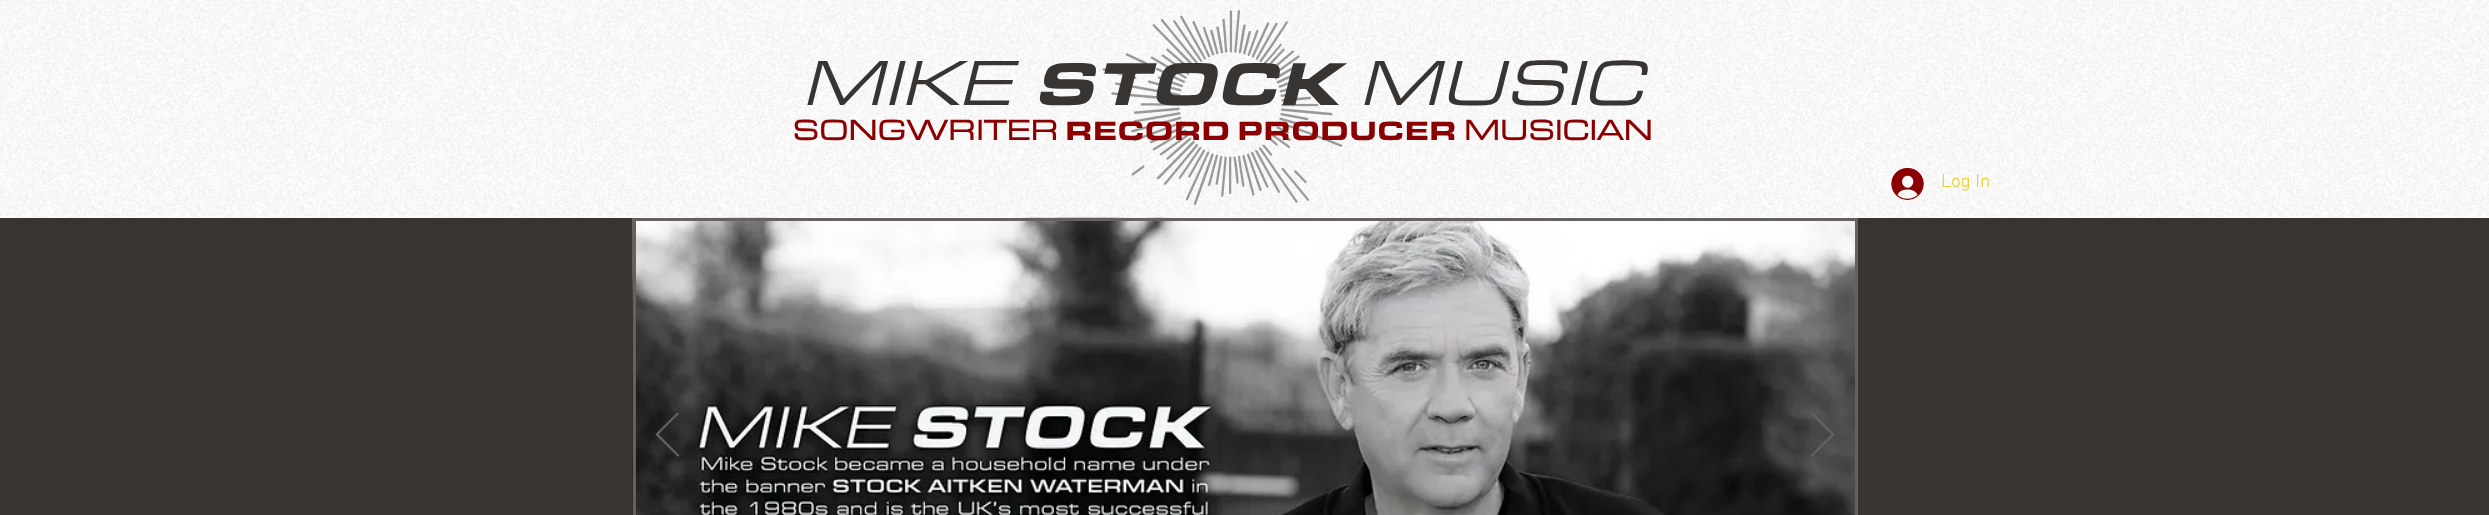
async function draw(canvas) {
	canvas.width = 2489;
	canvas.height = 515;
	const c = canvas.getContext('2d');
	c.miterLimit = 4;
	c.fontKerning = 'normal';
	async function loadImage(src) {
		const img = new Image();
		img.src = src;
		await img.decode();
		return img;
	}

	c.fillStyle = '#383432';
	c.fillRect(0, 0, 2489, 515);
	c.fillStyle = '#fff';
	c.fillRect(0, 0, 2489, 218);
	c.drawImage(await loadImage('img1.png'), 0, 0, 2489, 218);
	c.drawImage(await loadImage('img2.png'), 1102, 10, 241, 195);
	c.font = 'italic 500 62.5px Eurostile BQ';
	c.fillStyle = '#383432';
	c.fillText('MIKE', 802, 105);
	c.font = 'italic 900 62.5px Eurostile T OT';
	c.fillText('STOCK', 1033, 105);
	c.font = 'italic 500 62.5px Eurostile BQ';
	c.fillText('MUSIC', 1359, 105);
	c.font = 'bold 27.5px Eurostile BQ';
	c.fillStyle = '#8b0000';
	c.fillText('SONGWRITER', 793, 140);
	c.font = '900 27.5px Eurostile T OT';
	c.fillText('RECORD PRODUCER', 1065, 140);
	c.font = 'bold 27.5px Eurostile BQ';
	c.fillText('MUSICIAN', 1464, 140);
	c.drawImage(await loadImage('img3.png'), 1891, 168, 33, 32);
	c.font = '300 19px "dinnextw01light"';
	c.fillStyle = '#e9cc2b';
	c.fillText('Log In', 1941, 187);
	c.drawImage(await loadImage('img4.png'), 632, 217, 1226, 298);
	c.strokeStyle = '#66615e';
	c.lineWidth = 3;
	c.strokeRect(634.5, 219.5, 1222, 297);
	c.fillStyle = '#66615e';
	c.beginPath();
	c.moveTo(678, 456);
	c.lineTo(656, 434);
	c.lineTo(678, 413);
	c.lineTo(679, 413);
	c.lineTo(658, 434);
	c.lineTo(679, 455);
	c.closePath();
	c.fill();
	c.save();
	c.beginPath();
	c.rect(656, 413, 23, 45);
	c.clip();
	c.beginPath();
	c.moveTo(678, 456);
	c.lineTo(656, 434.5);
	c.lineTo(678, 412.5);
	c.lineTo(678.5, 413.5);
	c.lineTo(657.5, 434.5);
	c.lineTo(678.5, 455.5);
	c.closePath();
	c.lineWidth = 1.1;
	c.stroke();
	c.restore();
	c.beginPath();
	c.moveTo(1812, 456);
	c.lineTo(1834, 434);
	c.lineTo(1812, 413);
	c.lineTo(1811, 413);
	c.lineTo(1832, 434);
	c.lineTo(1811, 455);
	c.closePath();
	c.fill();
	c.save();
	c.beginPath();
	c.rect(1811, 413, 23, 45);
	c.clip();
	c.beginPath();
	c.moveTo(1812, 456);
	c.lineTo(1834, 434.5);
	c.lineTo(1812, 412.5);
	c.lineTo(1811.5, 413.5);
	c.lineTo(1832.5, 434.5);
	c.lineTo(1811.5, 455.5);
	c.closePath();
	c.lineWidth = 1.1;
	c.stroke();
	c.restore();
}

draw(document.querySelector('canvas'));
